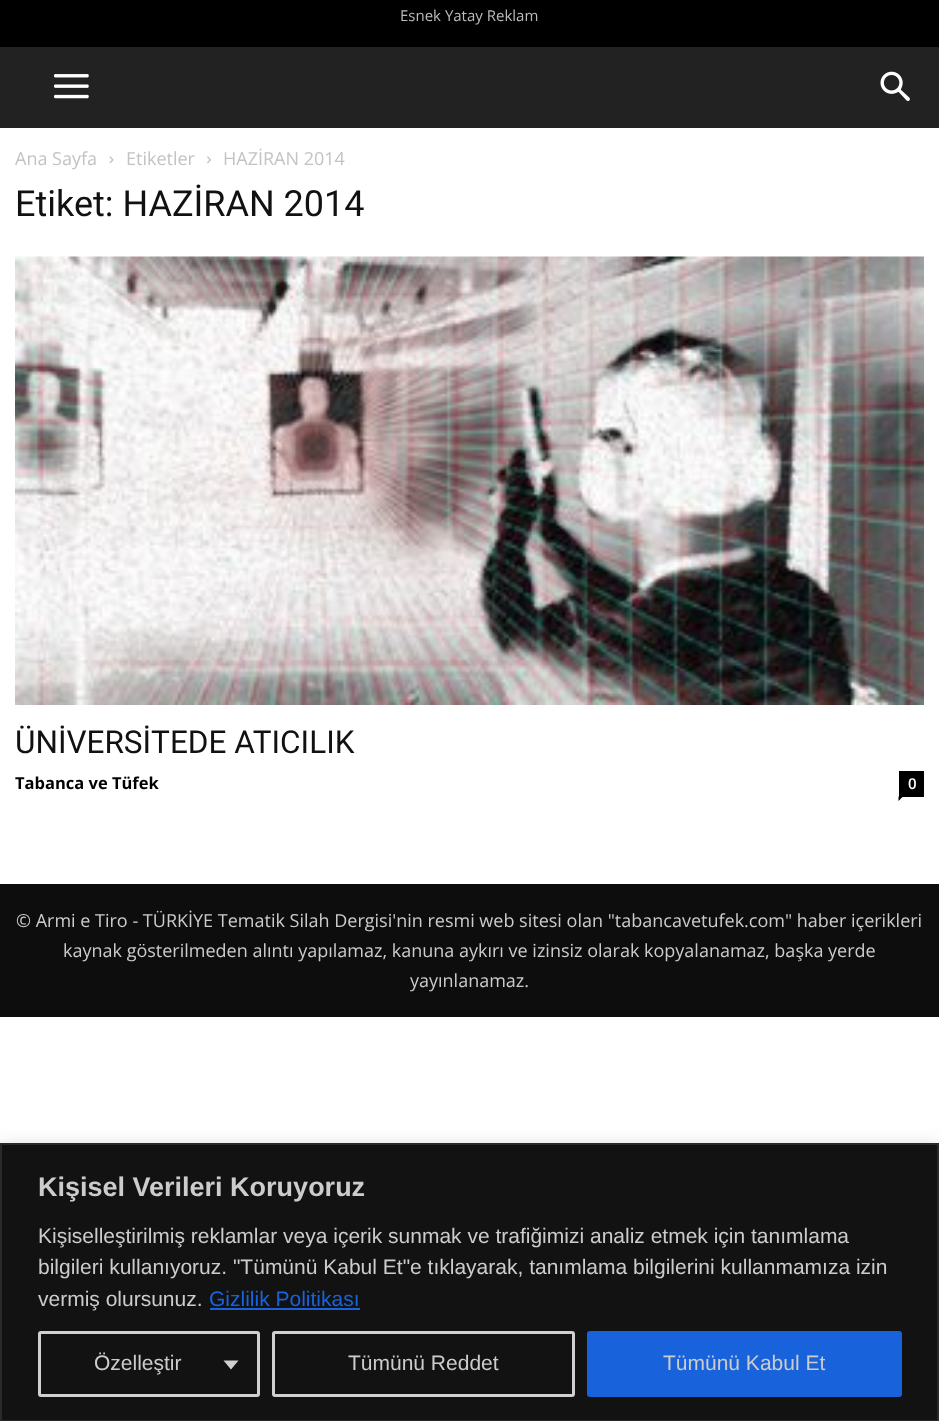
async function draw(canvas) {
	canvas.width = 939;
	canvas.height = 1421;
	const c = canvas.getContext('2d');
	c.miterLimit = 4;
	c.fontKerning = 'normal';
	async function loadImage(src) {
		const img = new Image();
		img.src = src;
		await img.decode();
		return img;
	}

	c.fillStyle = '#fff';
	c.fillRect(0, 0, 939, 1421);
	c.fillStyle = '#000';
	c.fillRect(0, 0, 939, 47);
	c.font = '15px Open Sans';
	c.fillStyle = '#bbb';
	c.fillText('Esnek Yatay Reklam', 400, 21);
	c.fillStyle = '#222';
	c.fillRect(0, 47, 939, 81);
	c.drawImage(await loadImage('img1.png'), 54, 74, 35, 25);
	c.drawImage(await loadImage('img2.png'), 880, 71, 30, 30);
	c.font = '18px Open Sans';
	c.fillStyle = '#c3c3c3';
	c.fillText('Ana Sayfa', 15, 165);
	c.drawImage(await loadImage('img3.png'), 109, 156, 5, 8);
	c.fillText('Etiketler', 126, 165);
	c.drawImage(await loadImage('img4.png'), 207, 156, 4, 8);
	c.fillText('HAZİRAN 2014', 223, 165);
	c.font = '36px Roboto';
	c.fillStyle = '#111';
	c.fillText('Etiket: HAZİRAN 2014', 15, 216);
	c.drawImage(await loadImage('img5.png'), 15, 256, 909, 449);
	c.font = '31.5px Roboto';
	c.fillText('ÜNİVERSİTEDE ATICILIK', 15, 753);
	c.font = 'bold 16.5px Open Sans';
	c.fillStyle = '#000';
	c.fillText('Tabanca ve Tüfek', 15, 789);
	c.fillRect(899, 771, 25, 26);
	c.font = '600 15px Open Sans';
	c.fillStyle = '#fff';
	c.fillText('0', 908, 789);
	c.fillStyle = '#000';
	c.beginPath();
	c.moveTo(898.5, 796.5);
	c.lineTo(903, 796.5);
	c.lineTo(898.5, 801);
	c.closePath();
	c.fill();
	c.fillStyle = '#0d0d0d';
	c.fillRect(0, 884, 939, 133);
	c.font = '18px Open Sans';
	c.fillStyle = '#ccc';
	for (const [text, x, y] of [
		['© Armi e Tiro - TÜRKİYE Tematik Silah Dergisi\'nin resmi web sitesi olan "tabancavetufek.com" haber içerikleri', 16, 927],
		['kaynak gösterilmeden alıntı yapılamaz, kanuna aykırı ve izinsiz olarak kopyalanamaz, başka yerde', 63, 957],
		['yayınlanamaz.', 410, 987],
	]) {
		c.fillText(text, x, y);
	}
	c.fillStyle = '#acabab4d';
	c.filter = 'blur(7.5px)';
	c.beginPath();
	c.rect(0, 1142, 939, 279);
	c.fill();
	c.filter = 'none';
	c.fillStyle = '#121212';
	c.beginPath();
	c.rect(1, 1144, 937, 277);
	c.fill();
	c.strokeStyle = '#2a2a2a';
	c.lineWidth = 2;
	c.stroke();
	c.font = 'bold 27px Liberation Sans';
	c.fillStyle = '#ccc';
	c.fillText('Kişisel Verileri Koruyoruz', 38, 1196);
	c.font = '21px Liberation Sans';
	for (const [text, x, y] of [
		['Kişiselleştirilmiş reklamlar veya içerik sunmak ve trafiğimizi analiz etmek için tanımlama', 38, 1243],
		['bilgileri kullanıyoruz. "Tümünü Kabul Et"e tıklayarak, tanımlama bilgilerini kullanmamıza izin', 38, 1274],
		['vermiş olursunuz.', 38, 1306],
	]) {
		c.fillText(text, x, y);
	}
	c.fillStyle = '#1863dc';
	c.fillText('Gizlilik Politikası', 209, 1306);
	c.fillRect(210, 1308, 150, 2);
	c.beginPath();
	c.roundRect(39.5, 1332.5, 219, 63, 1.5);
	c.strokeStyle = '#d0d0d0';
	c.lineWidth = 3;
	c.stroke();
	c.fillStyle = '#ccc';
	c.fillText('Özelleştir', 94, 1370);
	c.fillStyle = '#d0d0d0';
	c.beginPath();
	c.moveTo(223.5, 1360.5);
	c.lineTo(238.5, 1360.5);
	c.lineTo(231, 1369.5);
	c.closePath();
	c.fill();
	c.beginPath();
	c.roundRect(273.5, 1332.5, 300, 63, 1.5);
	c.stroke();
	c.fillStyle = '#ccc';
	c.fillText('Tümünü Reddet', 348, 1370);
	c.fillStyle = '#1863dc';
	c.beginPath();
	c.roundRect(588.5, 1332.5, 312, 63, 1.5);
	c.fill();
	c.strokeStyle = '#1863dc';
	c.stroke();
	c.fillStyle = '#ccc';
	c.fillText('Tümünü Kabul Et', 663, 1370);
}

draw(document.querySelector('canvas'));
